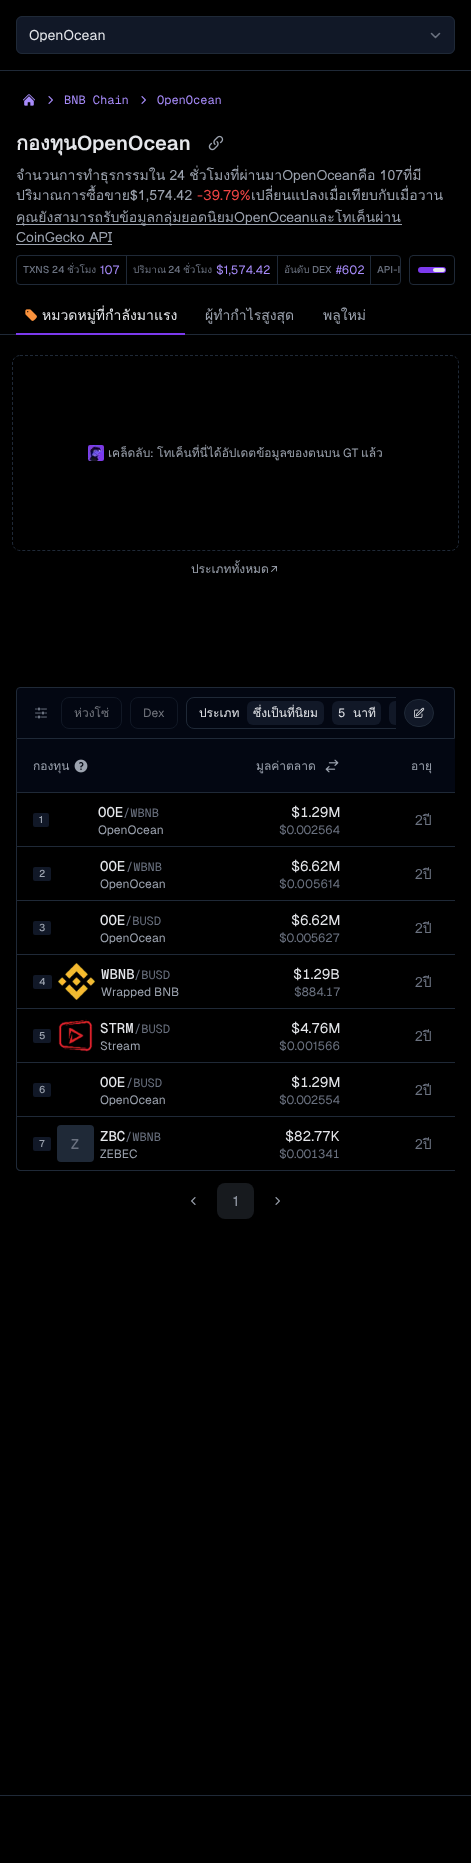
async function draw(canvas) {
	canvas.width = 471;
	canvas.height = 1863;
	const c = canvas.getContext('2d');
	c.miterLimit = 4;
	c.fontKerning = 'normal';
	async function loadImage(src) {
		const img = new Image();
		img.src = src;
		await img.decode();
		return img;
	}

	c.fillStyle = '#000';
	c.fillRect(0, 0, 471, 1863);
	c.fillStyle = '#1f2937';
	c.fillRect(0, 70, 471, 1);
	c.fillStyle = '#111827';
	c.beginPath();
	c.roundRect(16, 16, 439, 38, 6);
	c.fill();
	c.beginPath();
	c.moveTo(431.5, 33.5);
	c.lineTo(435.5, 37.5);
	c.lineTo(439.5, 33.5);
	c.strokeStyle = '#6b7280';
	c.lineWidth = 1.6;
	c.lineCap = 'round';
	c.lineJoin = 'round';
	c.stroke();
	c.beginPath();
	c.roundRect(16.5, 16.5, 438, 37, 5.5);
	c.strokeStyle = '#1f2937';
	c.lineWidth = 1;
	c.lineJoin = 'miter';
	c.stroke();
	c.font = '14px Geist';
	c.fillStyle = '#e5e7eb';
	c.fillText('OpenOcean', 29, 40);
	c.drawImage(await loadImage('img1.png'), 23, 94, 12, 12);
	c.drawImage(await loadImage('img2.png'), 48, 96, 5, 8);
	c.font = '12px Geist Mono';
	c.fillStyle = '#a78bfa';
	c.fillText('BNB Chain', 64, 104);
	c.drawImage(await loadImage('img2.png'), 141, 96, 5, 8);
	c.fillText('OpenOcean', 157, 104);
	c.font = 'bold 20px Loma';
	c.fillStyle = '#e5e7eb';
	c.fillText('กองทุน', 16, 150);
	c.font = '600 20px Geist';
	c.fillText('OpenOcean', 77, 150);
	c.drawImage(await loadImage('img3.png'), 208, 135, 16, 16);
	c.wordSpacing = '-0.5px';
	c.font = '14px Loma';
	c.fillStyle = '#9ca3af';
	c.fillText('จำนวนการทำธุรกรรมใน 24 ชั่วโมงที่ผ่านมาOpenOceanคือ 107ที่มี', 16, 180);
	c.wordSpacing = '0px';
	c.fillText('ปริมาณการซื้อขาย$1,574.42', 16, 200);
	c.font = '14px Geist';
	c.fillStyle = '#ef4444';
	c.fillText('-39.79%', 197, 200);
	c.font = '14px Loma';
	c.fillStyle = '#9ca3af';
	c.fillText('เปลี่ยนแปลงเมื่อเทียบกับเมื่อวาน', 251, 200);
	c.fillRect(16, 224, 386, 1);
	c.fillText('คุณยังสามารถรับข้อมูลกลุ่มยอดนิยมOpenOceanและโทเค็นผ่าน', 16, 222);
	c.fillText('CoinGecko API', 16, 242);
	c.fillRect(16, 244, 96, 1);
	c.beginPath();
	c.roundRect(16.5, 255.5, 384, 29, 3.5);
	c.stroke();
	c.font = '500 10px Geist';
	c.fillStyle = '#6b7280';
	c.fillText('TXNS 24', 23, 273);
	c.font = '10px Loma';
	c.fillText('ชั่วโมง', 67, 273);
	c.font = '12px Geist';
	c.fillStyle = '#a78bfa';
	c.fillText('107', 100, 274);
	c.fillStyle = '#1f2937';
	c.fillRect(126, 256, 1, 28);
	c.font = '10px Loma';
	c.fillStyle = '#6b7280';
	c.fillText('ปริมาณ', 133, 273);
	c.font = '500 10px Geist';
	c.fillText('24', 168, 273);
	c.font = '10px Loma';
	c.fillText('ชั่วโมง', 183, 273);
	c.font = '12px Geist';
	c.fillStyle = '#a78bfa';
	c.fillText('$1,574.42', 216, 274);
	c.fillStyle = '#1f2937';
	c.fillRect(277, 256, 1, 28);
	c.font = '10px Loma';
	c.fillStyle = '#6b7280';
	c.fillText('อันดับ', 284, 273);
	c.font = '500 10px Geist';
	c.fillText('DEX', 312, 273);
	c.font = '12px Geist';
	c.fillStyle = '#a78bfa';
	c.fillText('#602', 336, 274);
	c.fillStyle = '#1f2937';
	c.fillRect(370, 256, 1, 28);
	c.font = '500 10px Geist';
	c.fillStyle = '#6b7280';
	c.fillText('API-I', 377, 273);
	c.beginPath();
	c.roundRect(409.5, 255.5, 45, 29, 3.5);
	c.stroke();
	c.fillStyle = '#7c3aed';
	c.beginPath();
	c.roundRect(418, 267, 28, 6, 3);
	c.fill();
	c.fillStyle = '#e5e7eb';
	c.beginPath();
	c.roundRect(433, 268, 12, 4, 2);
	c.fill();
	c.drawImage(await loadImage('img4.png'), 25, 309, 12, 12);
	c.font = '14px Loma';
	c.fillText('หมวดหมู่ที่กำลังมาแรง', 42, 320);
	c.fillStyle = '#9ca3af';
	c.fillText('ผู้ทำกำไรสูงสุด', 205, 320);
	c.fillText('พลูใหม่', 323, 320);
	c.fillStyle = '#1f2937';
	c.fillRect(0, 334, 471, 1);
	c.fillStyle = '#7c3aed';
	c.fillRect(16, 333, 169, 2);
	c.beginPath();
	c.moveTo(20, 355.5);
	c.lineTo(451, 355.5);
	c.bezierCurveTo(455, 355.5, 458.5, 359, 458.5, 363);
	c.lineTo(458.5, 543);
	c.bezierCurveTo(458.5, 547, 455, 550.5, 451, 550.5);
	c.lineTo(20, 550.5);
	c.bezierCurveTo(16, 550.5, 12.5, 547, 12.5, 543);
	c.lineTo(12.5, 363);
	c.bezierCurveTo(12.5, 359, 16, 355.5, 20, 355.5);
	c.closePath();
	c.lineCap = 'butt';
	c.setLineDash([3, 2]);
	c.stroke();
	c.drawImage(await loadImage('img5.png'), 88, 445, 16, 16);
	c.font = '12px Loma';
	c.fillStyle = '#9ca3af';
	c.fillText('เคล็ดลับ', 108, 457);
	c.font = '12px Geist';
	c.fillText(':', 150, 457);
	c.font = '12px Loma';
	c.fillText('โทเค็นที่นี่ได้อัปเดตข้อมูลของตนบน', 157, 457);
	c.font = '12px Geist';
	c.fillText('GT', 343, 457);
	c.font = '12px Loma';
	c.fillText('แล้ว', 361, 457);
	c.fillText('ประเภททั้งหมด', 191, 573);
	c.drawImage(await loadImage('img6.png'), 271, 566, 6, 6);
	c.fillStyle = '#030712';
	c.beginPath();
	c.roundRect(16.5, 687.5, 438, 51, [3.5, 3.5, 0, 0]);
	c.fill();
	c.setLineDash([]);
	c.stroke();
	c.drawImage(await loadImage('img7.png'), 35, 707, 12, 12);
	c.beginPath();
	c.roundRect(61.5, 697.5, 60, 31, 7.5);
	c.strokeStyle = '#111825';
	c.stroke();
	c.fillStyle = '#74777f';
	c.fillText('ห่วงโซ่', 74, 717);
	c.beginPath();
	c.roundRect(130.5, 697.5, 47, 31, 7.5);
	c.stroke();
	c.font = '12px Geist';
	c.fillText('Dex', 143, 717);
	c.save();
	c.beginPath();
	c.rect(61, 697, 335, 32);
	c.clip();
	c.beginPath();
	c.roundRect(186.5, 697.5, 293, 31, 7.5);
	c.strokeStyle = '#1f2937';
	c.stroke();
	c.restore();
	c.font = '12px Loma';
	c.fillStyle = '#e5e7eb';
	c.fillText('ประเภท', 199, 717);
	c.fillStyle = '#111827';
	c.beginPath();
	c.roundRect(247, 701, 77, 24, 6);
	c.fill();
	c.fillStyle = '#e5e7eb';
	c.fillText('ซึ่งเป็นที่นิยม', 253, 717);
	c.fillStyle = '#111827';
	c.beginPath();
	c.roundRect(332, 701, 49, 24, 6);
	c.fill();
	c.font = '12px Geist Mono';
	c.fillStyle = '#e5e7eb';
	c.fillText('5', 338, 717);
	c.font = '12px Loma';
	c.fillText('นาที', 353, 717);
	c.fillStyle = '#111827';
	c.beginPath();
	c.roundRect(389, 701, 7, 24, [6, 0, 0, 6]);
	c.fill();
	c.beginPath();
	c.roundRect(404.5, 699.5, 29, 27, 13.5);
	c.fill();
	c.strokeStyle = '#1f2937';
	c.stroke();
	c.drawImage(await loadImage('img8.png'), 414, 707, 11, 11);
	for (const [x, y, w, h, color] of [
		[16, 792, 439, 1, '#1f2937'],
		[16, 739, 1, 54, '#1f2937'],
		[17, 739, 438, 53, '#030712'],
	]) {
		c.fillStyle = color;
		c.fillRect(x, y, w, h);
	}
	c.fillStyle = '#9ca3af';
	c.fillText('กองทุน', 33, 770);
	c.drawImage(await loadImage('img9.png'), 74, 759, 14, 14);
	c.fillText('มูลค่าตลาด', 256, 770);
	c.drawImage(await loadImage('img10.png'), 325, 759, 14, 14);
	c.fillText('อายุ', 411, 770);
	for (const [x, y, w, h, color] of [
		[16, 846, 439, 1, '#1f2937'],
		[16, 900, 439, 1, '#1f2937'],
		[16, 954, 439, 1, '#1f2937'],
		[16, 1008, 439, 1, '#1f2937'],
		[16, 1062, 439, 1, '#1f2937'],
		[16, 1116, 439, 1, '#1f2937'],
		[16, 793, 1, 324, '#1f2937'],
	]) {
		c.fillStyle = color;
		c.fillRect(x, y, w, h);
	}
	c.fillStyle = '#111827';
	c.beginPath();
	c.roundRect(33, 813, 16, 14, 2);
	c.fill();
	c.font = '500 10px Geist';
	c.fillStyle = '#9ca3af';
	c.fillText('1', 39, 823);
	c.font = '500 14px Geist Mono';
	c.fillStyle = '#e5e7eb';
	c.fillText('OOE', 98, 817);
	c.font = '12px Geist Mono';
	c.fillStyle = '#6b7280';
	c.fillText('/WBNB', 123, 817);
	c.font = '12px Geist';
	c.fillStyle = '#9ca3af';
	c.fillText('OpenOcean', 98, 834);
	c.font = '14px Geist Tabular';
	c.fillStyle = '#e5e7eb';
	c.fillText('$1.29M', 291, 817);
	c.font = '12px Geist Tabular';
	c.fillStyle = '#6b7280';
	c.fillText('$0.002564', 279, 834);
	c.font = '14px Loma';
	c.fillText('2ปี', 415, 825);
	c.fillStyle = '#111827';
	c.beginPath();
	c.roundRect(33, 867, 18, 14, 2);
	c.fill();
	c.font = '500 10px Geist';
	c.fillStyle = '#9ca3af';
	c.fillText('2', 39, 877);
	c.font = '500 14px Geist Mono';
	c.fillStyle = '#e5e7eb';
	c.fillText('OOE', 100, 871);
	c.font = '12px Geist Mono';
	c.fillStyle = '#6b7280';
	c.fillText('/WBNB', 126, 871);
	c.font = '12px Geist';
	c.fillStyle = '#9ca3af';
	c.fillText('OpenOcean', 100, 888);
	c.font = '14px Geist Tabular';
	c.fillStyle = '#e5e7eb';
	c.fillText('$6.62M', 291, 871);
	c.font = '12px Geist';
	c.fillStyle = '#6b7280';
	c.fillText('$0.005614', 279, 888);
	c.font = '14px Loma';
	c.fillText('2ปี', 415, 879);
	c.fillStyle = '#111827';
	c.beginPath();
	c.roundRect(33, 921, 18, 14, 2);
	c.fill();
	c.font = '500 10px Geist';
	c.fillStyle = '#9ca3af';
	c.fillText('3', 39, 931);
	c.font = '500 14px Geist Mono';
	c.fillStyle = '#e5e7eb';
	c.fillText('OOE', 100, 925);
	c.font = '12px Geist Mono';
	c.fillStyle = '#6b7280';
	c.fillText('/BUSD', 125, 925);
	c.font = '12px Geist';
	c.fillStyle = '#9ca3af';
	c.fillText('OpenOcean', 100, 942);
	c.font = '14px Geist Tabular';
	c.fillStyle = '#e5e7eb';
	c.fillText('$6.62M', 291, 925);
	c.font = '12px Geist Tabular';
	c.fillStyle = '#6b7280';
	c.fillText('$0.005627', 279, 942);
	c.font = '14px Loma';
	c.fillText('2ปี', 415, 933);
	c.fillStyle = '#111827';
	c.beginPath();
	c.roundRect(33, 975, 19, 14, 2);
	c.fill();
	c.font = '500 10px Geist';
	c.fillStyle = '#9ca3af';
	c.fillText('4', 39, 985);
	c.drawImage(await loadImage('img11.png'), 58, 963, 37, 37);
	c.font = '500 14px Geist Mono';
	c.fillStyle = '#e5e7eb';
	c.fillText('WBNB', 101, 979);
	c.font = '12px Geist Mono';
	c.fillStyle = '#6b7280';
	c.fillText('/BUSD', 134, 979);
	c.font = '12px Geist';
	c.fillStyle = '#9ca3af';
	c.fillText('Wrapped BNB', 101, 996);
	c.font = '14px Geist Tabular';
	c.fillStyle = '#e5e7eb';
	c.fillText('$1.29B', 293, 979);
	c.font = '12px Geist Tabular';
	c.fillStyle = '#6b7280';
	c.fillText('$884.17', 294, 996);
	c.font = '14px Loma';
	c.fillText('2ปี', 415, 987);
	c.fillStyle = '#111827';
	c.beginPath();
	c.roundRect(33, 1029, 18, 14, 2);
	c.fill();
	c.font = '500 10px Geist';
	c.fillStyle = '#9ca3af';
	c.fillText('5', 39, 1039);
	c.drawImage(await loadImage('img12.png'), 58, 1019, 35, 33);
	c.font = '500 14px Geist Mono';
	c.fillStyle = '#e5e7eb';
	c.fillText('STRM', 100, 1033);
	c.font = '12px Geist Mono';
	c.fillStyle = '#6b7280';
	c.fillText('/BUSD', 134, 1033);
	c.font = '12px Geist';
	c.fillStyle = '#9ca3af';
	c.fillText('Stream', 100, 1050);
	c.font = '14px Geist Tabular';
	c.fillStyle = '#e5e7eb';
	c.fillText('$4.76M', 291, 1033);
	c.font = '12px Geist';
	c.fillStyle = '#6b7280';
	c.fillText('$0.001566', 279, 1050);
	c.font = '14px Loma';
	c.fillText('2ปี', 415, 1041);
	c.fillStyle = '#111827';
	c.beginPath();
	c.roundRect(33, 1083, 18, 14, 2);
	c.fill();
	c.font = '500 10px Geist';
	c.fillStyle = '#9ca3af';
	c.fillText('6', 39, 1093);
	c.font = '500 14px Geist Mono';
	c.fillStyle = '#e5e7eb';
	c.fillText('OOE', 100, 1087);
	c.font = '12px Geist Mono';
	c.fillStyle = '#6b7280';
	c.fillText('/BUSD', 126, 1087);
	c.font = '12px Geist';
	c.fillStyle = '#9ca3af';
	c.fillText('OpenOcean', 100, 1104);
	c.font = '14px Geist Tabular';
	c.fillStyle = '#e5e7eb';
	c.fillText('$1.29M', 291, 1087);
	c.font = '12px Geist Tabular';
	c.fillStyle = '#6b7280';
	c.fillText('$0.002554', 279, 1104);
	c.font = '14px Loma';
	c.fillText('2ปี', 415, 1095);
	c.fillStyle = '#1f2937';
	c.beginPath();
	c.moveTo(16, 1117);
	c.lineTo(224, 1117);
	c.lineTo(224, 1171);
	c.lineTo(20, 1171);
	c.bezierCurveTo(18, 1171, 16, 1169, 16, 1167);
	c.closePath();
	c.moveTo(17, 1117);
	c.lineTo(224, 1117);
	c.lineTo(224, 1170);
	c.lineTo(20, 1170);
	c.lineTo(18, 1169);
	c.lineTo(17, 1167);
	c.closePath();
	c.fill('evenodd');
	c.fillStyle = '#111827';
	c.beginPath();
	c.roundRect(33, 1137, 18, 14, 2);
	c.fill();
	c.font = '500 10px Geist';
	c.fillStyle = '#9ca3af';
	c.fillText('7', 39, 1147);
	c.fillStyle = '#1f2937';
	c.beginPath();
	c.roundRect(57, 1125, 37, 37, 4);
	c.fill();
	c.font = '500 14px Geist';
	c.fillStyle = '#6b7280';
	c.fillText('Z', 71, 1149);
	c.font = '500 14px Geist Mono';
	c.fillStyle = '#e5e7eb';
	c.fillText('ZBC', 100, 1141);
	c.font = '12px Geist Mono';
	c.fillStyle = '#6b7280';
	c.fillText('/WBNB', 125, 1141);
	c.font = '12px Geist';
	c.fillStyle = '#9ca3af';
	c.fillText('ZEBEC', 100, 1158);
	c.fillStyle = '#1f2937';
	c.fillRect(224, 1170, 231, 1);
	c.font = '14px Geist';
	c.fillStyle = '#e5e7eb';
	c.fillText('$82.77K', 285, 1141);
	c.font = '12px Geist Tabular';
	c.fillStyle = '#6b7280';
	c.fillText('$0.001341', 279, 1158);
	c.font = '14px Loma';
	c.fillText('2ปี', 415, 1149);
	c.drawImage(await loadImage('img13.png'), 191, 1197, 5, 8);
	c.fillStyle = '#171a1e';
	c.beginPath();
	c.roundRect(217, 1183, 37, 36, 8);
	c.fill();
	c.font = '14px Geist';
	c.fillStyle = '#9ca3af';
	c.fillText('1', 233, 1206);
	c.drawImage(await loadImage('img14.png'), 275, 1197, 5, 8);
	c.fillStyle = '#1f2937';
	c.fillRect(0, 1795, 471, 1);
}

draw(document.querySelector('canvas'));
